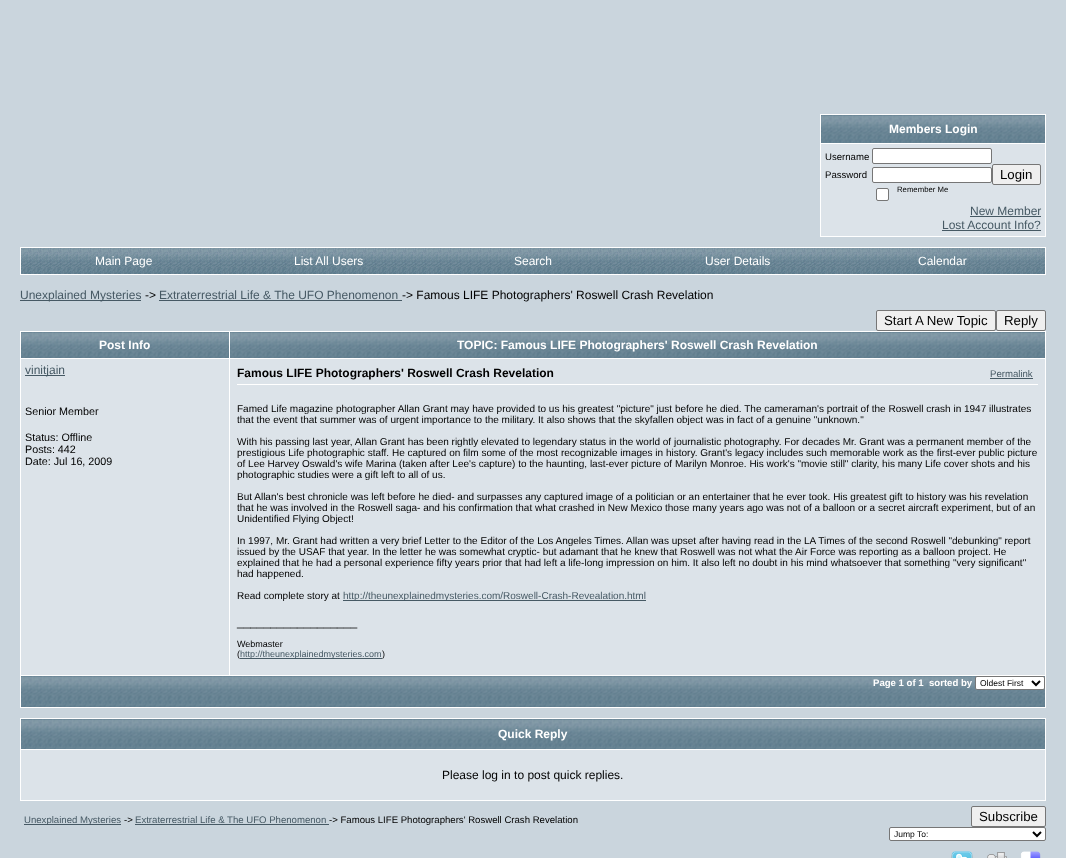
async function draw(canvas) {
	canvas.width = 1066;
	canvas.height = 858;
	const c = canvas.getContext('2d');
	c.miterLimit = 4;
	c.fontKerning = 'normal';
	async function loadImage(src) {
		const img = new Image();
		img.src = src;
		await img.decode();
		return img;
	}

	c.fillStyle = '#cad5dd';
	c.fillRect(0, 0, 1066, 858);
	for (const [x, y, w, h, color] of [
		[820, 114, 226, 1, '#fff'],
		[1045, 114, 1, 123, '#fff'],
		[820, 236, 226, 1, '#fff'],
		[820, 114, 1, 123, '#fff'],
	]) {
		c.fillStyle = color;
		c.fillRect(x, y, w, h);
	}
	c.drawImage(await loadImage('img1.png'), 821, 115, 224, 28);
	c.fillRect(820, 143, 226, 1);
	c.font = 'bold 12px Liberation Sans';
	c.fillText('Members Login', 889, 133);
	c.fillStyle = '#dce3e9';
	c.fillRect(821, 144, 224, 92);
	c.font = '9.6px Liberation Sans';
	c.fillStyle = '#000';
	c.fillText('Username', 825, 160);
	c.fillStyle = '#fff';
	c.beginPath();
	c.roundRect(872.5, 148.5, 119, 15, 1.5);
	c.fill();
	c.strokeStyle = '#767676';
	c.stroke();
	c.fillStyle = '#000';
	c.fillText('Password', 825, 178);
	c.fillStyle = '#fff';
	c.beginPath();
	c.roundRect(872.5, 167.5, 119, 15, 1.5);
	c.fill();
	c.stroke();
	c.fillStyle = '#efefef';
	c.beginPath();
	c.roundRect(992.5, 164.5, 48, 20, 1.5);
	c.fill();
	c.stroke();
	c.font = '13.25px Liberation Sans';
	c.fillStyle = '#000';
	c.fillText('Login', 1000, 179);
	c.fillStyle = '#fff';
	c.beginPath();
	c.roundRect(876.5, 188.5, 12, 12, 1.5);
	c.fill();
	c.stroke();
	c.font = '7.75px Liberation Sans';
	c.fillStyle = '#000';
	c.fillText('Remember Me', 897, 192);
	c.font = '12px Liberation Sans';
	c.fillStyle = '#465964';
	c.fillText('New Member', 970, 215);
	c.fillRect(970, 216, 71, 1);
	c.fillText('Lost Account Info?', 942, 229);
	c.fillRect(942, 230, 99, 1);
	c.strokeStyle = '#fff';
	c.strokeRect(20.5, 247.5, 1025, 27);
	c.drawImage(await loadImage('img2.png'), 21, 248, 205, 26);
	c.fillStyle = '#fff';
	c.fillText('Main Page', 95, 265);
	c.drawImage(await loadImage('img2.png'), 226, 248, 205, 26);
	c.fillText('List All Users', 294, 265);
	c.drawImage(await loadImage('img3.png'), 431, 248, 204, 26);
	c.fillText('Search', 514, 265);
	c.drawImage(await loadImage('img2.png'), 635, 248, 205, 26);
	c.fillText('User Details', 705, 265);
	c.drawImage(await loadImage('img2.png'), 840, 248, 205, 26);
	c.fillText('Calendar', 918, 265);
	c.fillStyle = '#465964';
	c.fillRect(20, 300, 121, 1);
	c.fillText('Unexplained Mysteries', 20, 299);
	c.fillStyle = '#000';
	c.fillText('->', 145, 299);
	c.fillStyle = '#465964';
	c.fillText('Extraterrestrial Life & The UFO Phenomenon', 159, 299);
	c.fillRect(159, 300, 243, 1);
	c.fillStyle = '#000';
	c.fillText('-> Famous LIFE Photographers\' Roswell Crash Revelation', 402, 299);
	c.fillStyle = '#efefef';
	c.beginPath();
	c.roundRect(876.5, 310.5, 119, 20, 1.5);
	c.fill();
	c.strokeStyle = '#767676';
	c.stroke();
	c.font = '13.25px Liberation Sans';
	c.fillStyle = '#000';
	c.fillText('Start A New Topic', 884, 325);
	c.fillStyle = '#efefef';
	c.beginPath();
	c.roundRect(996.5, 310.5, 49, 20, 1.5);
	c.fill();
	c.stroke();
	c.fillStyle = '#000';
	c.fillText('Reply', 1004, 325);
	for (const [x, y, w, h, color] of [
		[20, 331, 1026, 1, '#fff'],
		[1045, 331, 1, 377, '#fff'],
		[20, 707, 1026, 1, '#fff'],
		[20, 331, 1, 377, '#fff'],
	]) {
		c.fillStyle = color;
		c.fillRect(x, y, w, h);
	}
	c.drawImage(await loadImage('img4.png'), 21, 332, 208, 26);
	for (const [x, y, w, h, color] of [
		[229, 358, 817, 1, '#fff'],
		[20, 675, 1026, 1, '#fff'],
		[229, 358, 1, 318, '#fff'],
		[20, 358, 210, 1, '#fff'],
		[229, 331, 1, 28, '#fff'],
	]) {
		c.fillStyle = color;
		c.fillRect(x, y, w, h);
	}
	c.font = 'bold 12px Liberation Sans';
	c.fillText('Post Info', 99, 349);
	c.drawImage(await loadImage('img5.png'), 230, 332, 815, 26);
	c.fillText('TOPIC: Famous LIFE Photographers\' Roswell Crash Revelation', 457, 349);
	c.fillStyle = '#dce3e9';
	c.fillRect(21, 359, 208, 316);
	c.fillStyle = '#465964';
	c.fillRect(25, 375, 40, 1);
	c.font = '12px Liberation Sans';
	c.fillText('vinitjain', 25, 374);
	c.font = '10.75px Liberation Sans';
	c.fillStyle = '#000';
	for (const [text, x, y] of [
		['Senior Member', 25, 415],
		['Status: Offline', 25, 441],
		['Posts: 442', 25, 453],
		['Date: Jul 16, 2009', 25, 465],
	]) {
		c.fillText(text, x, y);
	}
	c.fillStyle = '#dce3e9';
	c.fillRect(230, 359, 815, 316);
	c.font = 'bold 12px Liberation Sans';
	c.fillStyle = '#000';
	c.fillText('Famous LIFE Photographers\' Roswell Crash Revelation', 237, 377);
	c.font = '9.6px Liberation Sans';
	c.fillStyle = '#465964';
	c.fillText('Permalink', 990, 377);
	c.fillRect(990, 378, 43, 1);
	c.fillStyle = '#fff';
	c.fillRect(237, 384, 801, 1);
	c.font = '10px Liberation Sans';
	c.fillStyle = '#000';
	for (const [text, x, y] of [
		['Famed Life magazine photographer Allan Grant may have provided to us his greatest "picture" just before he died. The cameraman\'s portrait of the Roswell crash in 1947 illustrates', 237, 412],
		['that the event that summer was of urgent importance to the military. It also shows that the skyfallen object was in fact of a genuine "unknown."', 237, 423],
		['With his passing last year, Allan Grant has been rightly elevated to legendary status in the world of journalistic photography. For decades Mr. Grant was a permanent member of the', 237, 445],
		['prestigious Life photographic staff. He captured on film some of the most recognizable images in history. Grant\'s legacy includes such memorable work as the first-ever public picture', 237, 456],
		['of Lee Harvey Oswald\'s wife Marina (taken after Lee\'s capture) to the haunting, last-ever picture of Marilyn Monroe. His work\'s "movie still" clarity, his many Life cover shots and his', 237, 467],
		['photographic studies were a gift left to all of us.', 237, 478],
		['But Allan\'s best chronicle was left before he died- and surpasses any captured image of a politician or an entertainer that he ever took. His greatest gift to history was his revelation', 237, 500],
		['that he was involved in the Roswell saga- and his confirmation that what crashed in New Mexico those many years ago was not of a balloon or a secret aircraft experiment, but of an', 237, 511],
		['Unidentified Flying Object!', 237, 522],
		['In 1997, Mr. Grant had written a very brief Letter to the Editor of the Los Angeles Times. Allan was upset after having read in the LA Times of the second Roswell "debunking" report', 237, 544],
		['issued by the USAF that year. In the letter he was somewhat cryptic- but adamant that he knew that Roswell was not what the Air Force was reporting as a balloon project. He', 237, 555],
		['explained that he had a personal experience fifty years prior that had left a life-long impression on him. It also left no doubt in his mind whatsoever that something "very significant"', 237, 566],
		['had happened.', 237, 577],
		['Read complete story at', 237, 599],
	]) {
		c.fillText(text, x, y);
	}
	c.fillStyle = '#465964';
	c.fillRect(343, 600, 303, 1);
	c.fillText('http://theunexplainedmysteries.com/Roswell-Crash-Revealation.html', 343, 599);
	c.font = '12px Liberation Sans';
	c.fillStyle = '#000';
	c.fillText('__________________', 237, 626);
	c.font = '9px Liberation Sans';
	c.fillText('Webmaster', 237, 647);
	c.fillText('(', 237, 657);
	c.fillStyle = '#465964';
	c.fillRect(240, 658, 142, 1);
	c.fillText('http://theunexplainedmysteries.com', 240, 657);
	c.fillStyle = '#000';
	c.fillText(')', 382, 657);
	c.drawImage(await loadImage('img6.png'), 21, 676, 1024, 31);
	c.font = 'bold 9.6px Liberation Sans';
	c.fillStyle = '#fff';
	c.fillText('Page 1 of 1', 873, 686);
	c.fillText('sorted by', 929, 686);
	c.beginPath();
	c.roundRect(975.5, 676.5, 69, 13, 1.5);
	c.fill();
	c.stroke();
	c.beginPath();
	c.moveTo(1032, 681);
	c.lineTo(1036, 685);
	c.lineTo(1040, 681);
	c.strokeStyle = '#000';
	c.lineWidth = 2;
	c.stroke();
	c.font = '8.5px Liberation Sans';
	c.fillStyle = '#000';
	c.fillText('Oldest First', 980, 686);
	for (const [x, y, w, h, color] of [
		[20, 718, 1026, 1, '#fff'],
		[1045, 718, 1, 83, '#fff'],
		[20, 800, 1026, 1, '#fff'],
		[20, 718, 1, 83, '#fff'],
	]) {
		c.fillStyle = color;
		c.fillRect(x, y, w, h);
	}
	c.drawImage(await loadImage('img7.png'), 21, 719, 1024, 30);
	c.fillRect(20, 749, 1026, 1);
	c.font = 'bold 12px Liberation Sans';
	c.fillText('Quick Reply', 498, 738);
	c.fillStyle = '#dce3e9';
	c.fillRect(21, 750, 1024, 50);
	c.font = '12px Liberation Sans';
	c.fillStyle = '#000';
	c.fillText('Please log in to post quick replies.', 442, 779);
	c.fillStyle = '#465964';
	c.fillRect(24, 824, 97, 1);
	c.font = '9.6px Liberation Sans';
	c.fillText('Unexplained Mysteries', 24, 823);
	c.fillStyle = '#000';
	c.fillText('->', 124, 823);
	c.fillStyle = '#465964';
	c.fillText('Extraterrestrial Life & The UFO Phenomenon', 135, 823);
	c.fillRect(135, 824, 194, 1);
	c.fillStyle = '#000';
	c.fillText('-> Famous LIFE Photographers\' Roswell Crash Revelation', 329, 823);
	c.fillStyle = '#efefef';
	c.beginPath();
	c.roundRect(971.5, 806.5, 74, 20, 1.5);
	c.fill();
	c.strokeStyle = '#767676';
	c.lineWidth = 1;
	c.stroke();
	c.font = '13.25px Liberation Sans';
	c.fillStyle = '#000';
	c.fillText('Subscribe', 979, 821);
	c.fillStyle = '#fff';
	c.beginPath();
	c.roundRect(889.5, 827.5, 156, 13, 1.5);
	c.fill();
	c.stroke();
	c.beginPath();
	c.moveTo(1033, 832);
	c.lineTo(1037, 836);
	c.lineTo(1041, 832);
	c.strokeStyle = '#000';
	c.lineWidth = 2;
	c.stroke();
	c.font = '8.5px Liberation Sans';
	c.fillStyle = '#000';
	c.fillText('Jump To:', 894, 837);
	c.drawImage(await loadImage('img8.png'), 951, 851, 22, 7);
	c.drawImage(await loadImage('img9.png'), 987, 852, 20, 6);
	c.drawImage(await loadImage('img10.png'), 1020, 851, 21, 7);
}

draw(document.querySelector('canvas'));
